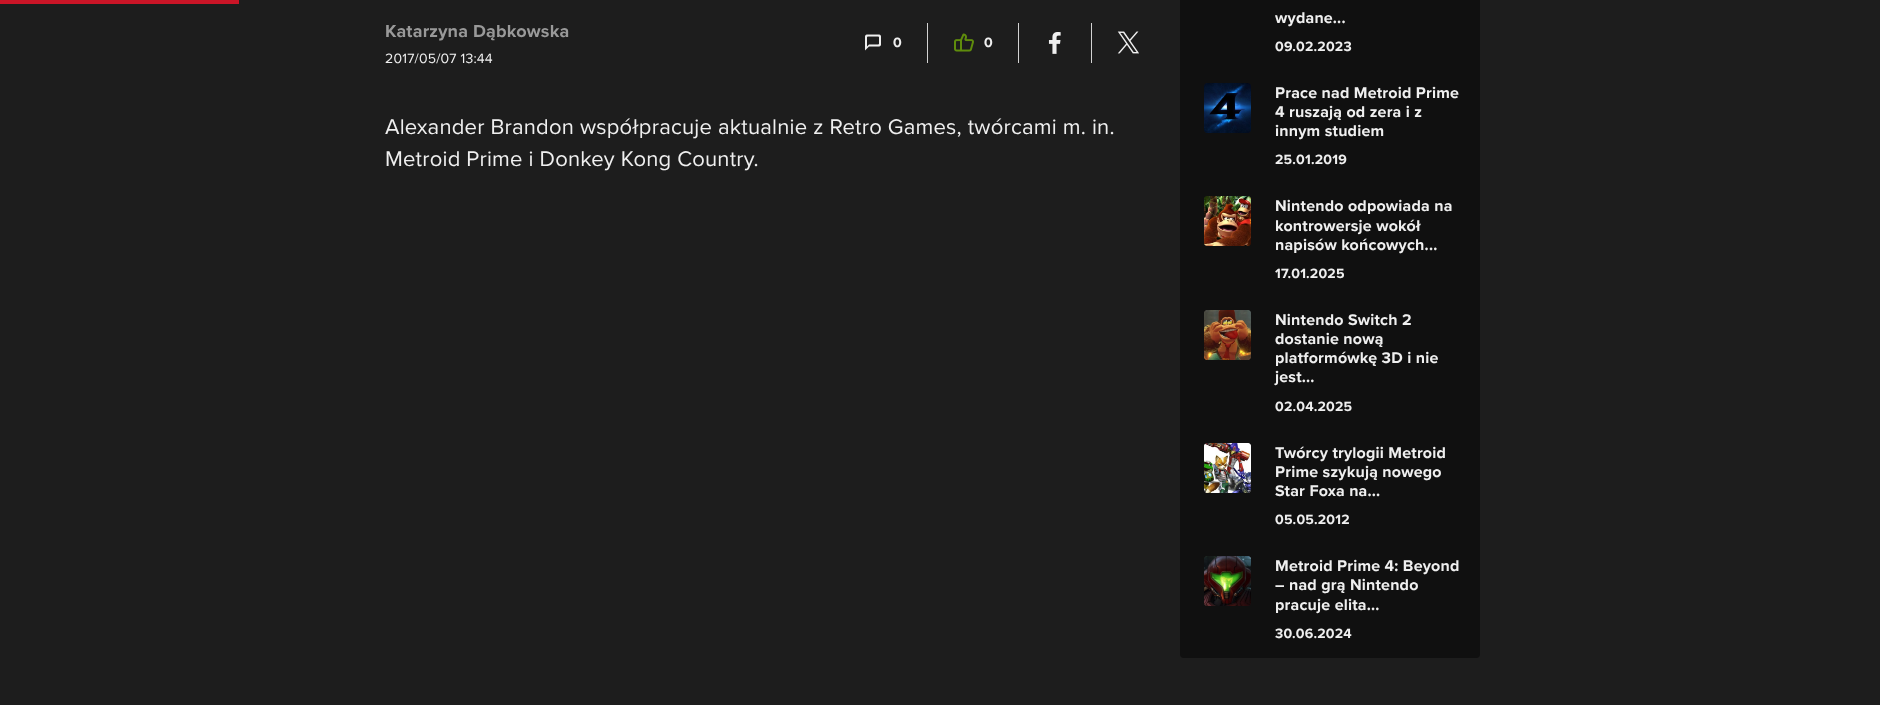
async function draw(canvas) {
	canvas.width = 1880;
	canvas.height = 705;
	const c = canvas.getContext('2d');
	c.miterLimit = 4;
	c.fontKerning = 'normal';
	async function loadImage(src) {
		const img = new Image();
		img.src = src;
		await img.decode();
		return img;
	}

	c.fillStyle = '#1d1d1d';
	c.fillRect(0, 0, 1880, 705);
	c.fillStyle = '#ca1527';
	c.fillRect(0, 0, 239, 4);
	c.letterSpacing = '0.2px';
	c.font = 'bold 18px Proxima Nova';
	c.fillStyle = '#999';
	c.fillText('Katarzyna Dąbkowska', 385, 37);
	c.font = '14px Proxima Nova';
	c.fillStyle = '#efefef';
	c.fillText('2017/05/07 13:44', 385, 63);
	c.drawImage(await loadImage('img1.png'), 865, 34, 16, 17);
	c.letterSpacing = '1px';
	c.font = 'bold 14px Proxima Nova';
	c.fillText('0', 893, 47);
	c.fillStyle = '#d2d2d2';
	c.fillRect(927, 23, 1, 40);
	c.drawImage(await loadImage('img2.png'), 954, 33, 20, 19);
	c.fillStyle = '#efefef';
	c.fillText('0', 984, 47);
	c.fillStyle = '#d2d2d2';
	c.fillRect(1018, 23, 1, 40);
	c.drawImage(await loadImage('img3.png'), 1048, 32, 13, 22);
	c.fillRect(1091, 23, 1, 40);
	c.drawImage(await loadImage('img4.png'), 1117, 31, 22, 23);
	c.letterSpacing = '0.2px';
	c.font = '22px Proxima Nova';
	c.fillStyle = '#efefef';
	c.fillText('Alexander Brandon współpracuje aktualnie z Retro Games, twórcami m. in.', 385, 134);
	c.fillText('Metroid Prime i Donkey Kong Country.', 385, 166);
	c.fillStyle = '#101010';
	c.beginPath();
	c.roundRect(1180, -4, 300, 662, 4);
	c.fill();
	c.font = 'bold 16px Proxima Nova';
	c.fillStyle = '#efefef';
	c.fillText('wydane...', 1275, 23);
	c.font = 'bold 14px Proxima Nova';
	c.fillText('09.02.2023', 1275, 51);
	c.drawImage(await loadImage('img5.png'), 1204, 83, 47, 50);
	c.save();
	c.beginPath();
	c.roundRect(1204, 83, 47, 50, 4);
	c.clip();
	c.fillStyle = '#d2d2d233';
	c.filter = 'blur(20px)';
	c.beginPath();
	c.rect(1199, 78, 57, 60);
	c.fill();
	c.filter = 'none';
	c.restore();
	c.drawImage(await loadImage('img7.png'), 1204, 196, 47, 50);
	c.save();
	c.beginPath();
	c.roundRect(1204, 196, 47, 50, 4);
	c.clip();
	c.fillStyle = '#d2d2d233';
	c.filter = 'blur(20px)';
	c.beginPath();
	c.rect(1199, 191, 57, 60);
	c.fill();
	c.filter = 'none';
	c.restore();
	c.drawImage(await loadImage('img6.png'), 1204, 83, 47, 50);
	c.font = 'bold 16px Proxima Nova';
	for (const [text, x, y] of [
		['Prace nad Metroid Prime', 1275, 98],
		['4 ruszają od zera i z', 1275, 117],
		['innym studiem', 1275, 136],
	]) {
		c.fillText(text, x, y);
	}
	c.font = 'bold 14px Proxima Nova';
	c.fillText('25.01.2019', 1275, 164);
	c.drawImage(await loadImage('img8.png'), 1204, 196, 47, 50);
	c.drawImage(await loadImage('img10.png'), 1204, 310, 47, 50);
	c.save();
	c.beginPath();
	c.roundRect(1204, 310, 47, 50, 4);
	c.clip();
	c.fillStyle = '#d2d2d233';
	c.filter = 'blur(20px)';
	c.beginPath();
	c.rect(1199, 305, 57, 60);
	c.fill();
	c.filter = 'none';
	c.restore();
	c.drawImage(await loadImage('img9.png'), 1204, 196, 47, 50);
	c.font = 'bold 16px Proxima Nova';
	for (const [text, x, y] of [
		['Nintendo odpowiada na', 1275, 211],
		['kontrowersje wokół', 1275, 231],
		['napisów końcowych...', 1275, 250],
	]) {
		c.fillText(text, x, y);
	}
	c.font = 'bold 14px Proxima Nova';
	c.fillText('17.01.2025', 1275, 278);
	c.drawImage(await loadImage('img11.png'), 1204, 310, 47, 50);
	c.drawImage(await loadImage('img12.png'), 1204, 310, 47, 50);
	c.font = 'bold 16px Proxima Nova';
	for (const [text, x, y] of [
		['Nintendo Switch 2', 1275, 325],
		['dostanie nową', 1275, 344],
		['platformówkę 3D i nie', 1275, 363],
		['jest...', 1275, 382],
	]) {
		c.fillText(text, x, y);
	}
	c.font = 'bold 14px Proxima Nova';
	c.fillText('02.04.2025', 1275, 411);
	c.drawImage(await loadImage('img13.png'), 1204, 443, 47, 50);
	c.save();
	c.beginPath();
	c.roundRect(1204, 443, 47, 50, 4);
	c.clip();
	c.fillStyle = '#d2d2d233';
	c.filter = 'blur(20px)';
	c.beginPath();
	c.rect(1199, 438, 57, 60);
	c.fill();
	c.filter = 'none';
	c.restore();
	c.drawImage(await loadImage('img14.png'), 1204, 443, 47, 50);
	c.drawImage(await loadImage('img16.png'), 1204, 556, 47, 50);
	c.save();
	c.beginPath();
	c.roundRect(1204, 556, 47, 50, 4);
	c.clip();
	c.fillStyle = '#d2d2d233';
	c.filter = 'blur(20px)';
	c.beginPath();
	c.rect(1199, 551, 57, 60);
	c.fill();
	c.filter = 'none';
	c.restore();
	c.drawImage(await loadImage('img15.png'), 1204, 443, 47, 50);
	c.font = 'bold 16px Proxima Nova';
	for (const [text, x, y] of [
		['Twórcy trylogii Metroid', 1275, 458],
		['Prime szykują nowego', 1275, 477],
		['Star Foxa na...', 1275, 496],
	]) {
		c.fillText(text, x, y);
	}
	c.font = 'bold 14px Proxima Nova';
	c.fillText('05.05.2012', 1275, 524);
	c.drawImage(await loadImage('img17.png'), 1204, 556, 47, 50);
	c.drawImage(await loadImage('img18.png'), 1204, 556, 47, 50);
	c.font = 'bold 16px Proxima Nova';
	for (const [text, x, y] of [
		['Metroid Prime 4: Beyond', 1275, 571],
		['– nad grą Nintendo', 1275, 590],
		['pracuje elita...', 1275, 610],
	]) {
		c.fillText(text, x, y);
	}
	c.font = 'bold 14px Proxima Nova';
	c.fillText('30.06.2024', 1275, 638);
}

draw(document.querySelector('canvas'));
